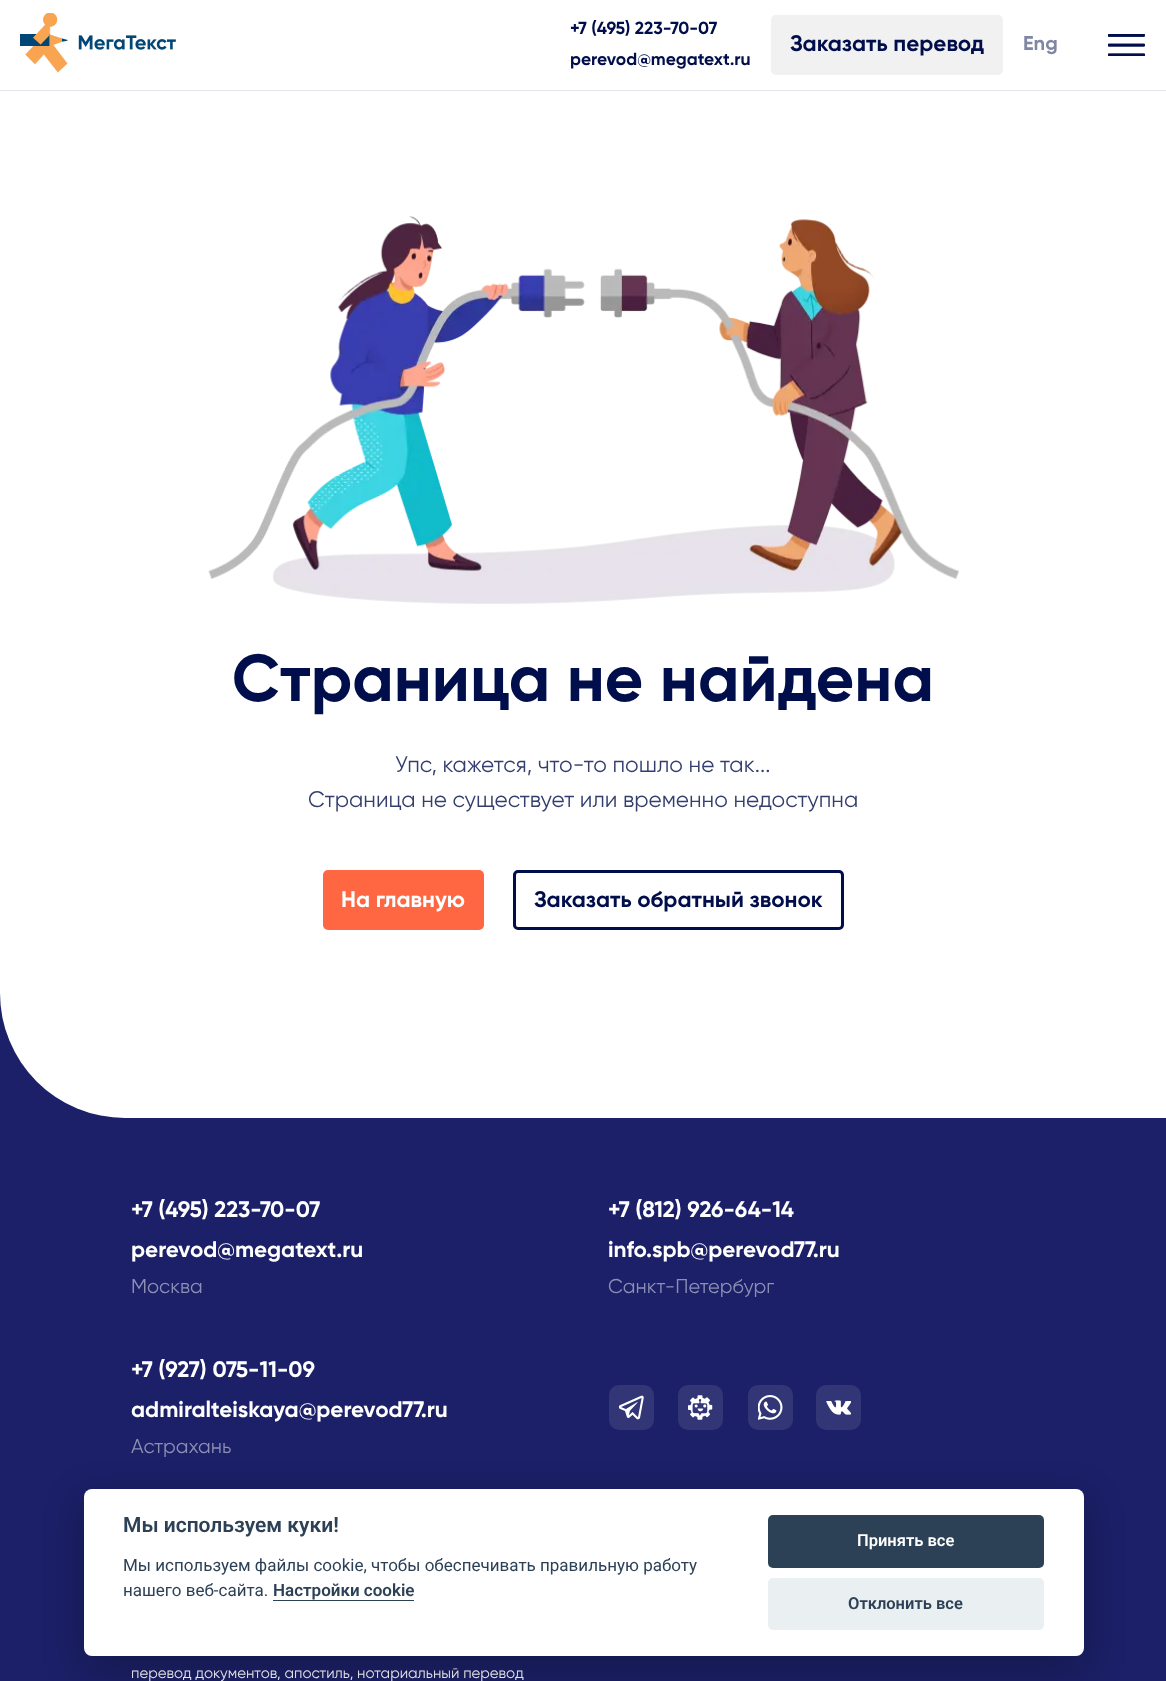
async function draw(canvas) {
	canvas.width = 1166;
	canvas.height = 1681;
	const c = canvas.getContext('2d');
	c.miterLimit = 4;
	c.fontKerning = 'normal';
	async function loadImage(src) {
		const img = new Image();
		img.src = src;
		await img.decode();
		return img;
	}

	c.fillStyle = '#fff';
	c.fillRect(0, 0, 1166, 1681);
	c.fillStyle = '#e6e7ed';
	c.fillRect(0, 90, 1166, 1);
	c.drawImage(await loadImage('img1.png'), 20, 13, 156, 60);
	c.font = 'bold 17.5px Gilroy';
	c.fillStyle = '#000e4b';
	c.fillText('+7 (495) 223-70-07', 570, 34);
	c.fillText('perevod@megatext.ru', 570, 65);
	c.fillStyle = '#f1f1f1';
	c.beginPath();
	c.roundRect(771, 15, 232, 60, 5);
	c.fill();
	c.font = 'bold 22.5px Gilroy';
	c.fillStyle = '#000e4b';
	c.fillText('Заказать перевод', 790, 51);
	c.font = 'bold 20px Gilroy';
	c.fillStyle = '#8087a5';
	c.fillText('Eng', 1023, 50);
	c.drawImage(await loadImage('img2.png'), 1108, 34, 37, 22);
	c.drawImage(await loadImage('img3.png'), 208, 216, 751, 388);
	c.font = 'bold 66.25px Gilroy';
	c.fillStyle = '#000e4b';
	c.fillText('Страница не найдена', 232, 701);
	c.font = '22.5px Gilroy';
	c.fillStyle = '#333e6f';
	c.fillText('Упс, кажется, что-то пошло не так...', 395, 772);
	c.fillText('Страница не существует или временно недоступна', 308, 807);
	c.fillStyle = '#ff6742';
	c.beginPath();
	c.roundRect(323, 870, 161, 60, 5);
	c.fill();
	c.font = 'bold 22.5px Gilroy';
	c.fillStyle = '#fff';
	c.fillText('На главную', 341, 907);
	c.beginPath();
	c.roundRect(514.5, 871.5, 328, 57, 3.5);
	c.strokeStyle = '#000e4b';
	c.lineWidth = 3;
	c.stroke();
	c.fillStyle = '#000e4b';
	c.fillText('Заказать обратный звонок', 534, 907);
	c.fillStyle = '#1b2068';
	c.fillRect(0, 993, 1166, 688);
	c.fillStyle = '#fff';
	c.beginPath();
	c.roundRect(0, 930, 1166, 188, [0, 0, 0, 125]);
	c.fill();
	c.fillText('+7 (495) 223-70-07', 131, 1217);
	c.fillText('perevod@megatext.ru', 131, 1257);
	c.font = '20px Gilroy';
	c.fillStyle = '#8d90b4';
	c.fillText('Москва', 131, 1293);
	c.font = 'bold 22.5px Gilroy';
	c.fillStyle = '#fff';
	c.fillText('+7 (812) 926-64-14', 608, 1217);
	c.fillText('info.spb@perevod77.ru', 608, 1257);
	c.font = '20px Gilroy';
	c.fillStyle = '#8d90b4';
	c.fillText('Санкт-Петербург', 608, 1293);
	c.font = 'bold 22.5px Gilroy';
	c.fillStyle = '#fff';
	c.fillText('+7 (927) 075-11-09', 131, 1377);
	c.fillText('admiralteiskaya@perevod77.ru', 131, 1417);
	c.font = '20px Gilroy';
	c.fillStyle = '#8d90b4';
	c.fillText('Астрахань', 131, 1453);
	c.fillStyle = '#323677';
	c.beginPath();
	c.roundRect(609, 1385, 45, 45, 10);
	c.fill();
	c.drawImage(await loadImage('img4.png'), 619, 1395, 25, 25);
	c.beginPath();
	c.roundRect(678, 1385, 45, 45, 10);
	c.fill();
	c.drawImage(await loadImage('img5.png'), 688, 1395, 25, 25);
	c.beginPath();
	c.roundRect(748, 1385, 45, 45, 10);
	c.fill();
	c.drawImage(await loadImage('img6.png'), 758, 1395, 25, 25);
	c.beginPath();
	c.roundRect(816, 1385, 45, 45, 10);
	c.fill();
	c.drawImage(await loadImage('img7.png'), 826, 1400, 25, 15);
	c.font = '15px Gilroy';
	c.fillStyle = '#fff';
	c.fillText('перевод документов, апостиль, нотариальный перевод', 131, 1678);
	c.fillStyle = '#02020347';
	c.filter = 'blur(19px)';
	c.beginPath();
	c.roundRect(84, 1501, 1000, 168, 8);
	c.fill();
	c.filter = 'none';
	c.fillStyle = '#fff';
	c.beginPath();
	c.roundRect(84, 1489, 1000, 167, 8);
	c.fill();
	c.font = '600 21px Roboto';
	c.fillStyle = '#2d4156';
	c.fillText('Мы используем куки!', 123, 1532);
	c.font = '17px Roboto';
	c.fillText('Мы используем файлы cookie, чтобы обеспечивать правильную работу', 123, 1571);
	c.fillText('нашего веб-сайта.', 123, 1596);
	c.font = '600 17px Roboto';
	c.fillText('Настройки cookie', 273, 1596);
	c.fillRect(273, 1600, 141, 1);
	c.beginPath();
	c.roundRect(768, 1515, 276, 53, 5);
	c.fill();
	c.font = '600 16.5px Roboto';
	c.fillStyle = '#fff';
	c.fillText('Принять все', 857, 1546);
	c.fillStyle = '#eaeff2';
	c.beginPath();
	c.roundRect(768, 1578, 276, 52, 5);
	c.fill();
	c.fillStyle = '#2d4156';
	c.fillText('Отклонить все', 848, 1609);
}

draw(document.querySelector('canvas'));
